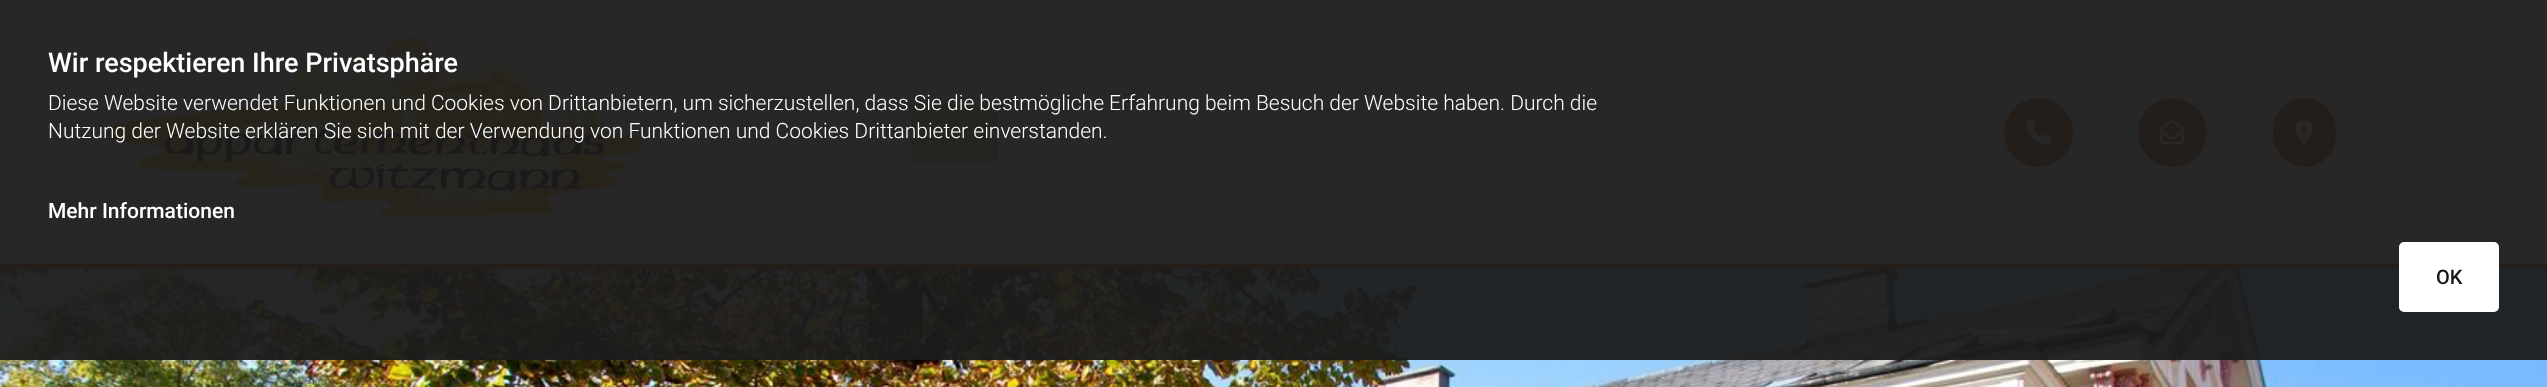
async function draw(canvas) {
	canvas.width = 2547;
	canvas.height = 387;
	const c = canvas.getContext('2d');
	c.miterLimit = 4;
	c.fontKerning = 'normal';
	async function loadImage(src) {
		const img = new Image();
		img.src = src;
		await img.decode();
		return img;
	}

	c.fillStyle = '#fff';
	c.fillRect(0, 0, 2547, 387);
	c.fillStyle = '#b35509';
	c.fillRect(0, 264, 2547, 5);
	c.drawImage(await loadImage('img1.png'), 106, 16, 537, 201);
	c.fillStyle = '#e8b972';
	c.fillRect(911, 104, 87, 58);
	c.fillStyle = '#b35509';
	c.beginPath();
	c.arc(2038.5, 132.5, 34.5, 0, 2 * Math.PI);
	c.fill();
	c.drawImage(await loadImage('img2.png'), 2026, 120, 25, 24);
	c.beginPath();
	c.arc(2172.5, 132.5, 34.5, 0, 2 * Math.PI);
	c.fill();
	c.drawImage(await loadImage('img3.png'), 2160, 120, 24, 24);
	c.beginPath();
	c.roundRect(2273, 98, 63, 69, 31.5);
	c.fill();
	c.drawImage(await loadImage('img4.png'), 2295, 120, 18, 24);
	c.drawImage(await loadImage('img5.png'), 0, 268, 2547, 119);
	c.fillStyle = '#1b1b1bf2';
	c.fillRect(0, 0, 2547, 360);
	c.font = '500 27px Roboto';
	c.fillStyle = '#fff';
	c.fillText('Wir respektieren Ihre Privatsphäre', 48, 72);
	c.font = '300 21px Roboto';
	c.fillText('Diese Website verwendet Funktionen und Cookies von Drittanbietern, um sicherzustellen, dass Sie die bestmögliche Erfahrung beim Besuch der Website haben. Durch die', 48, 110);
	c.fillText('Nutzung der Website erklären Sie sich mit der Verwendung von Funktionen und Cookies Drittanbieter einverstanden.', 48, 138);
	c.font = '500 21px Roboto';
	c.fillText('Mehr Informationen', 48, 218);
	c.beginPath();
	c.roundRect(2400, 243, 98, 68, 4);
	c.fill();
	c.strokeStyle = '#fff';
	c.lineWidth = 2;
	c.stroke();
	c.font = '500 20px Roboto';
	c.fillStyle = '#181818';
	c.fillText('OK', 2436, 284);
}

draw(document.querySelector('canvas'));
